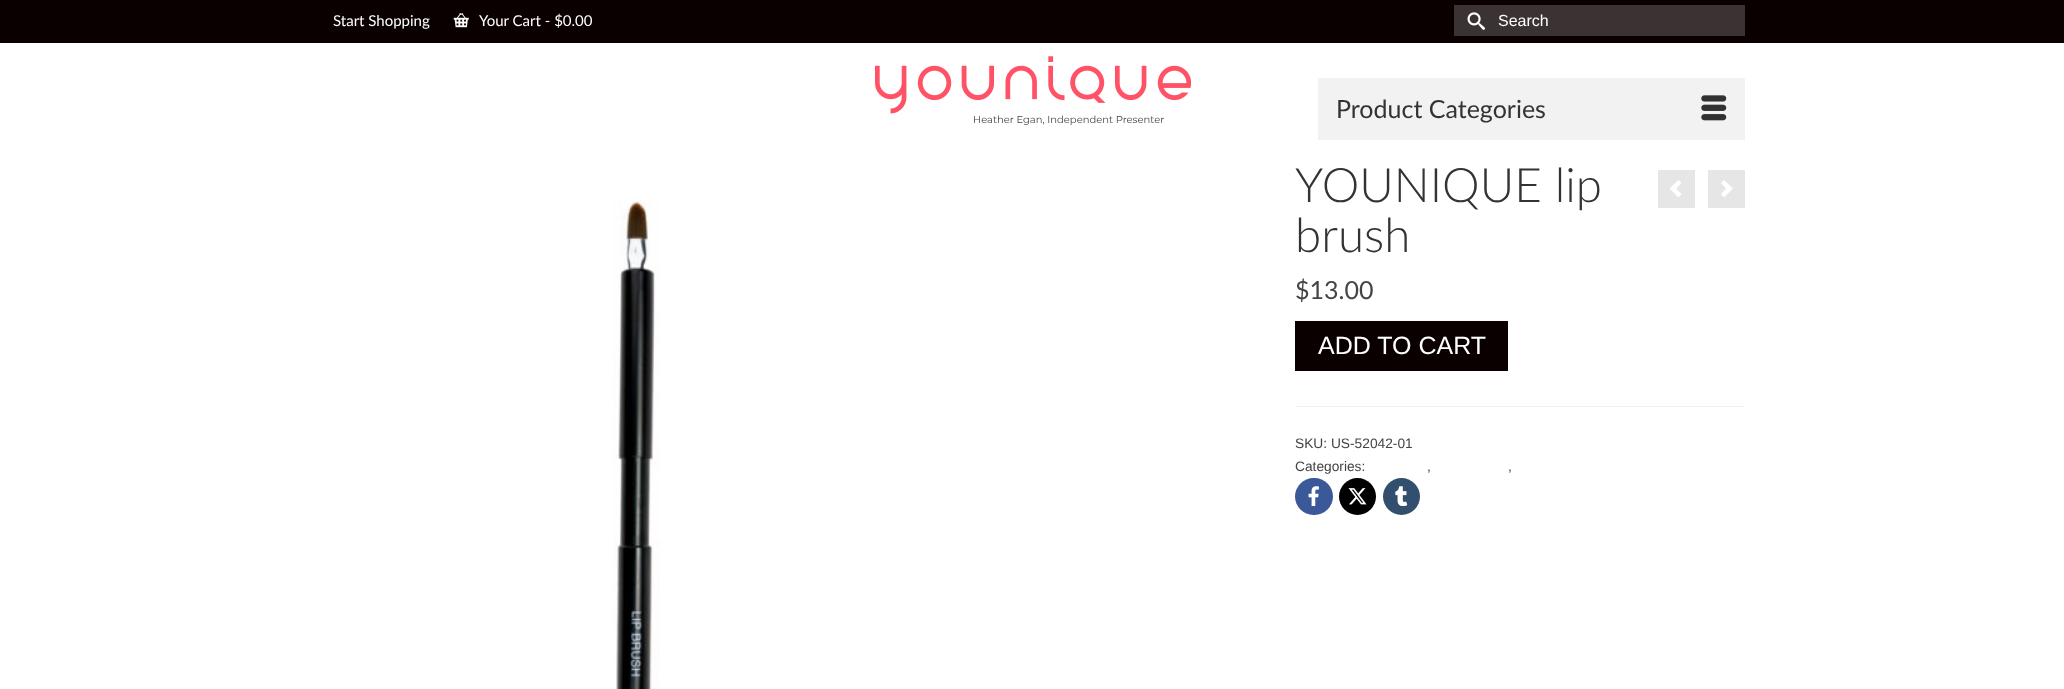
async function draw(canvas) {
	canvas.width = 2064;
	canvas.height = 689;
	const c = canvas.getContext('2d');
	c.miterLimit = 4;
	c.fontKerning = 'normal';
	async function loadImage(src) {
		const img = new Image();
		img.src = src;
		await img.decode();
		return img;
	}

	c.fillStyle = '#fff';
	c.fillRect(0, 0, 2064, 689);
	c.fillStyle = '#0a0000';
	c.fillRect(0, 0, 2064, 43);
	c.font = '15px Lato';
	c.fillStyle = '#fff';
	c.fillText('Start Shopping', 333, 26);
	c.drawImage(await loadImage('img1.png'), 453, 13, 16, 15);
	c.fillText('Your Cart - $0.00', 479, 26);
	c.fillStyle = '#3b3333';
	c.fillRect(1454, 5, 291, 31);
	c.drawImage(await loadImage('img2.png'), 1467, 12, 18, 18);
	c.font = '16px Liberation Sans';
	c.fillStyle = '#fff';
	c.fillText('Search', 1498, 26);
	c.drawImage(await loadImage('img3.png'), 875, 56, 316, 58);
	c.font = '10px Montserrat';
	c.fillStyle = '#444';
	c.fillText('Heather Egan, Independent Presenter', 973, 123);
	c.fillStyle = '#f2f2f2';
	c.fillRect(1318, 78, 427, 62);
	c.font = '25px Lato';
	c.fillStyle = '#333';
	c.fillText('Product Categories', 1336, 118);
	c.drawImage(await loadImage('img4.png'), 1701, 95, 26, 26);
	c.drawImage(await loadImage('img5.png'), 613, 199, 47, 490);
	c.font = '300 47.5px Lato';
	c.fillText('YOUNIQUE lip', 1295, 202);
	c.fillText('brush', 1295, 252);
	c.fillStyle = '#e6e6e6';
	c.fillRect(1658, 170, 37, 38);
	c.fillRect(1708, 170, 37, 38);
	c.fillStyle = '#fff';
	c.beginPath();
	c.moveTo(1678.5, 197.5);
	c.lineTo(1681.5, 194);
	c.lineTo(1676, 188.5);
	c.lineTo(1681.5, 183);
	c.lineTo(1678.5, 180);
	c.lineTo(1669.5, 188.5);
	c.closePath();
	c.fill();
	c.beginPath();
	c.moveTo(1724, 180);
	c.lineTo(1721, 183);
	c.lineTo(1726, 188.5);
	c.lineTo(1721, 194);
	c.lineTo(1724, 197.5);
	c.lineTo(1733, 188.5);
	c.closePath();
	c.fill();
	c.font = '25px Lato';
	c.fillStyle = '#444';
	c.fillText('$13.00', 1295, 299);
	c.fillStyle = '#0a0000';
	c.fillRect(1295, 321, 213, 50);
	c.font = '25px Liberation Sans';
	c.fillStyle = '#fff';
	c.fillText('ADD TO CART', 1318, 354);
	c.fillStyle = '#f2f2f2';
	c.fillRect(1295, 406, 450, 1);
	c.font = '13.75px Liberation Sans';
	c.fillStyle = '#444';
	for (const [text, x, y] of [
		['SKU: US-52042-01', 1295, 448],
		['Categories:', 1295, 471],
		[',', 1427, 471],
		[',', 1508, 471],
	]) {
		c.fillText(text, x, y);
	}
	c.fillStyle = '#3b5998';
	c.beginPath();
	c.roundRect(1295, 478, 38, 37, 18.5);
	c.fill();
	c.drawImage(await loadImage('img6.png'), 1308, 486, 11, 20);
	c.fillStyle = '#000';
	c.beginPath();
	c.arc(1357.5, 496.5, 18.5, 0, 2 * Math.PI);
	c.fill();
	c.drawImage(await loadImage('img7.png'), 1348, 488, 19, 17);
	c.fillStyle = '#32506d';
	c.beginPath();
	c.arc(1401.5, 496.5, 18.5, 0, 2 * Math.PI);
	c.fill();
	c.drawImage(await loadImage('img8.png'), 1395, 486, 13, 20);
}

draw(document.querySelector('canvas'));
